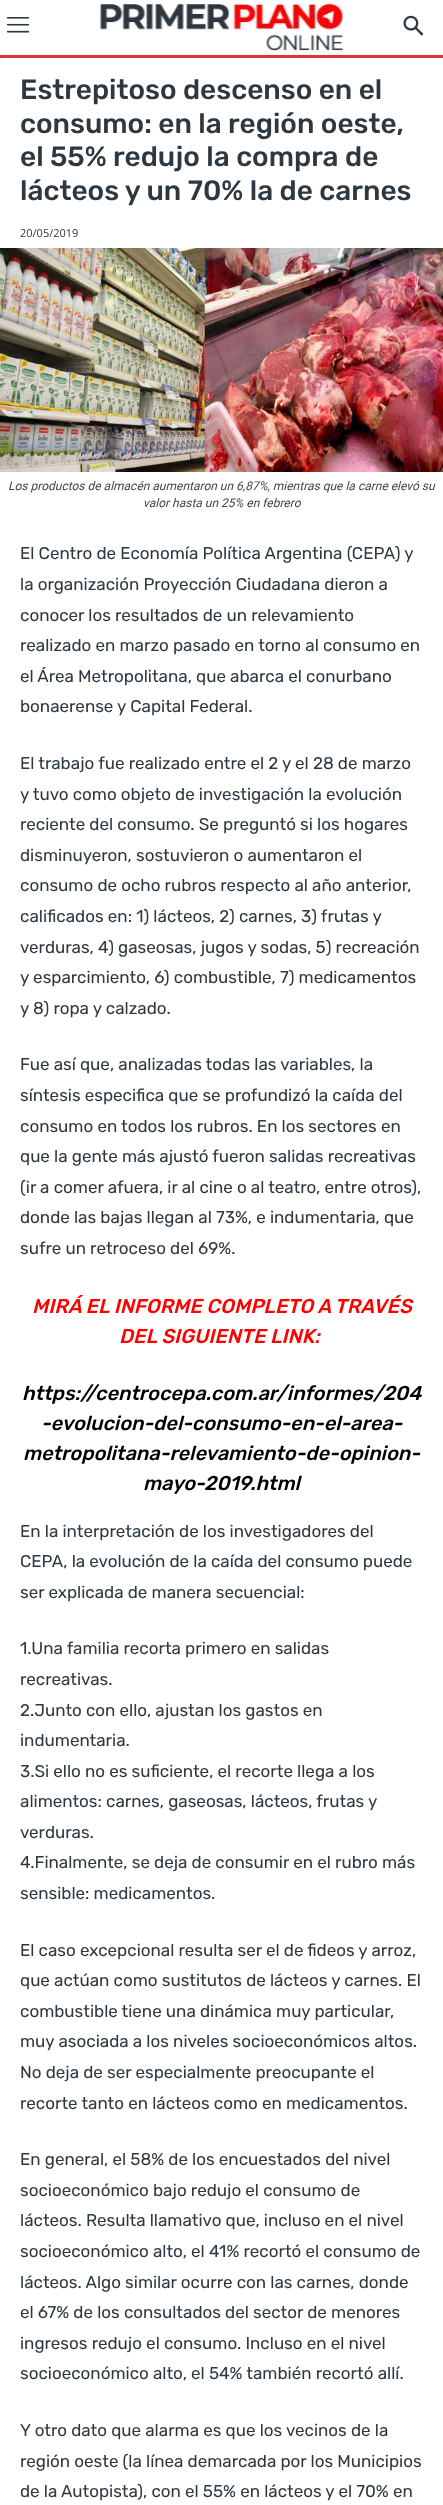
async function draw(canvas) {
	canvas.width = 443;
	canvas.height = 2505;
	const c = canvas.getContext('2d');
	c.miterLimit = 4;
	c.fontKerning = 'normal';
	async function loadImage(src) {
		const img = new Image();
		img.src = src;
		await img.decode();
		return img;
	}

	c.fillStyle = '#fff';
	c.fillRect(0, 0, 443, 2505);
	c.drawImage(await loadImage('img1.png'), 0, 58, 1, 10);
	c.drawImage(await loadImage('img2.png'), 6, 17, 24, 16);
	c.drawImage(await loadImage('img3.png'), 100, 4, 243, 47);
	c.drawImage(await loadImage('img4.png'), 403, 15, 21, 21);
	c.fillStyle = '#d33';
	c.fillRect(0, 55, 443, 3);
	c.font = '500 28px Rubik';
	c.fillStyle = '#2e3840';
	for (const [text, x, y] of [
		['Estrepitoso descenso en el', 20, 99],
		['consumo: en la región oeste,', 20, 133],
		['el 55% redujo la compra de', 20, 166],
		['lácteos y un 70% la de carnes', 20, 200],
	]) {
		c.fillText(text, x, y);
	}
	c.font = '11px Open Sans';
	c.fillText('20/05/2019', 20, 237);
	c.drawImage(await loadImage('img5.png'), 0, 248, 443, 224);
	c.font = 'italic 12px Roboto';
	c.fillStyle = '#444';
	c.fillText('Los productos de almacén aumentaron un 6,87%, mientras que la carne elevó su', 8, 490);
	c.fillText('valor hasta un 25% en febrero', 143, 507);
	c.font = '17px Rubik';
	c.fillStyle = '#2e3840';
	for (const [text, x, y] of [
		['El Centro de Economía Política Argentina (CEPA) y', 20, 559],
		['la organización Proyección Ciudadana dieron a', 20, 590],
		['conocer los resultados de un relevamiento', 20, 621],
		['realizado en marzo pasado en torno al consumo en', 20, 651],
		['el Área Metropolitana, que abarca el conurbano', 20, 682],
		['bonaerense y Capital Federal.', 20, 712],
		['El trabajo fue realizado entre el 2 y el 28 de marzo', 20, 769],
		['y tuvo como objeto de investigación la evolución', 20, 800],
		['reciente del consumo. Se preguntó si los hogares', 20, 830],
		['disminuyeron, sostuvieron o aumentaron el', 20, 861],
		['consumo de ocho rubros respecto al año anterior,', 20, 891],
		['calificados en: 1) lácteos, 2) carnes, 3) frutas y', 20, 922],
		['verduras, 4) gaseosas, jugos y sodas, 5) recreación', 20, 953],
		['y esparcimiento, 6) combustible, 7) medicamentos', 20, 983],
		['y 8) ropa y calzado.', 20, 1014],
		['Fue así que, analizadas todas las variables, la', 20, 1070],
		['síntesis especifica que se profundizó la caída del', 20, 1101],
		['consumo en todos los rubros. En los sectores en', 20, 1132],
		['que la gente más ajustó fueron salidas recreativas', 20, 1162],
		['(ir a comer afuera, ir al cine o al teatro, entre otros),', 20, 1193],
		['donde las bajas llegan al 73%, e indumentaria, que', 20, 1223],
		['sufre un retroceso del 69%.', 20, 1254],
	]) {
		c.fillText(text, x, y);
	}
	c.font = 'italic 500 20px Rubik';
	c.fillStyle = '#f00';
	c.fillText('MIRÁ EL INFORME COMPLETO A TRAVÉS', 32, 1313);
	c.fillText('DEL SIGUIENTE LINK:', 119, 1343);
	c.fillStyle = '#000';
	for (const [text, x, y] of [
		['https://centrocepa.com.ar/informes/204', 22, 1400],
		['-evolucion-del-consumo-en-el-area-', 41, 1430],
		['metropolitana-relevamiento-de-opinion-', 23, 1460],
		['mayo-2019.html', 143, 1490],
	]) {
		c.fillText(text, x, y);
	}
	c.font = '17px Rubik';
	c.fillStyle = '#2e3840';
	for (const [text, x, y] of [
		['En la interpretación de los investigadores del', 20, 1537],
		['CEPA, la evolución de la caída del consumo puede', 20, 1567],
		['ser explicada de manera secuencial:', 20, 1598],
		['1.Una familia recorta primero en salidas', 20, 1654],
		['recreativas.', 20, 1685],
		['2.Junto con ello, ajustan los gastos en', 20, 1716],
		['indumentaria.', 20, 1746],
		['3.Si ello no es suficiente, el recorte llega a los', 20, 1777],
		['alimentos: carnes, gaseosas, lácteos, frutas y', 20, 1807],
		['verduras.', 20, 1838],
		['4.Finalmente, se deja de consumir en el rubro más', 20, 1868],
		['sensible: medicamentos.', 20, 1899],
		['El caso excepcional resulta ser el de fideos y arroz,', 20, 1956],
		['que actúan como sustitutos de lácteos y carnes. El', 20, 1986],
		['combustible tiene una dinámica muy particular,', 20, 2017],
		['muy asociada a los niveles socioeconómicos altos.', 20, 2047],
		['No deja de ser especialmente preocupante el', 20, 2078],
		['recorte tanto en lácteos como en medicamentos.', 20, 2109],
		['En general, el 58% de los encuestados del nivel', 20, 2165],
		['socioeconómico bajo redujo el consumo de', 20, 2196],
		['lácteos. Resulta llamativo que, incluso en el nivel', 20, 2226],
		['socioeconómico alto, el 41% recortó el consumo de', 20, 2257],
		['lácteos. Algo similar ocurre con las carnes, donde', 20, 2288],
		['el 67% de los consultados del sector de menores', 20, 2318],
		['ingresos redujo el consumo. Incluso en el nivel', 20, 2349],
		['socioeconómico alto, el 54% también recortó allí.', 20, 2379],
		['Y otro dato que alarma es que los vecinos de la', 20, 2436],
		['región oeste (la línea demarcada por los Municipios', 20, 2467],
		['de la Autopista), con el 55% en lácteos y el 70% en', 20, 2497],
	]) {
		c.fillText(text, x, y);
	}
}

draw(document.querySelector('canvas'));
